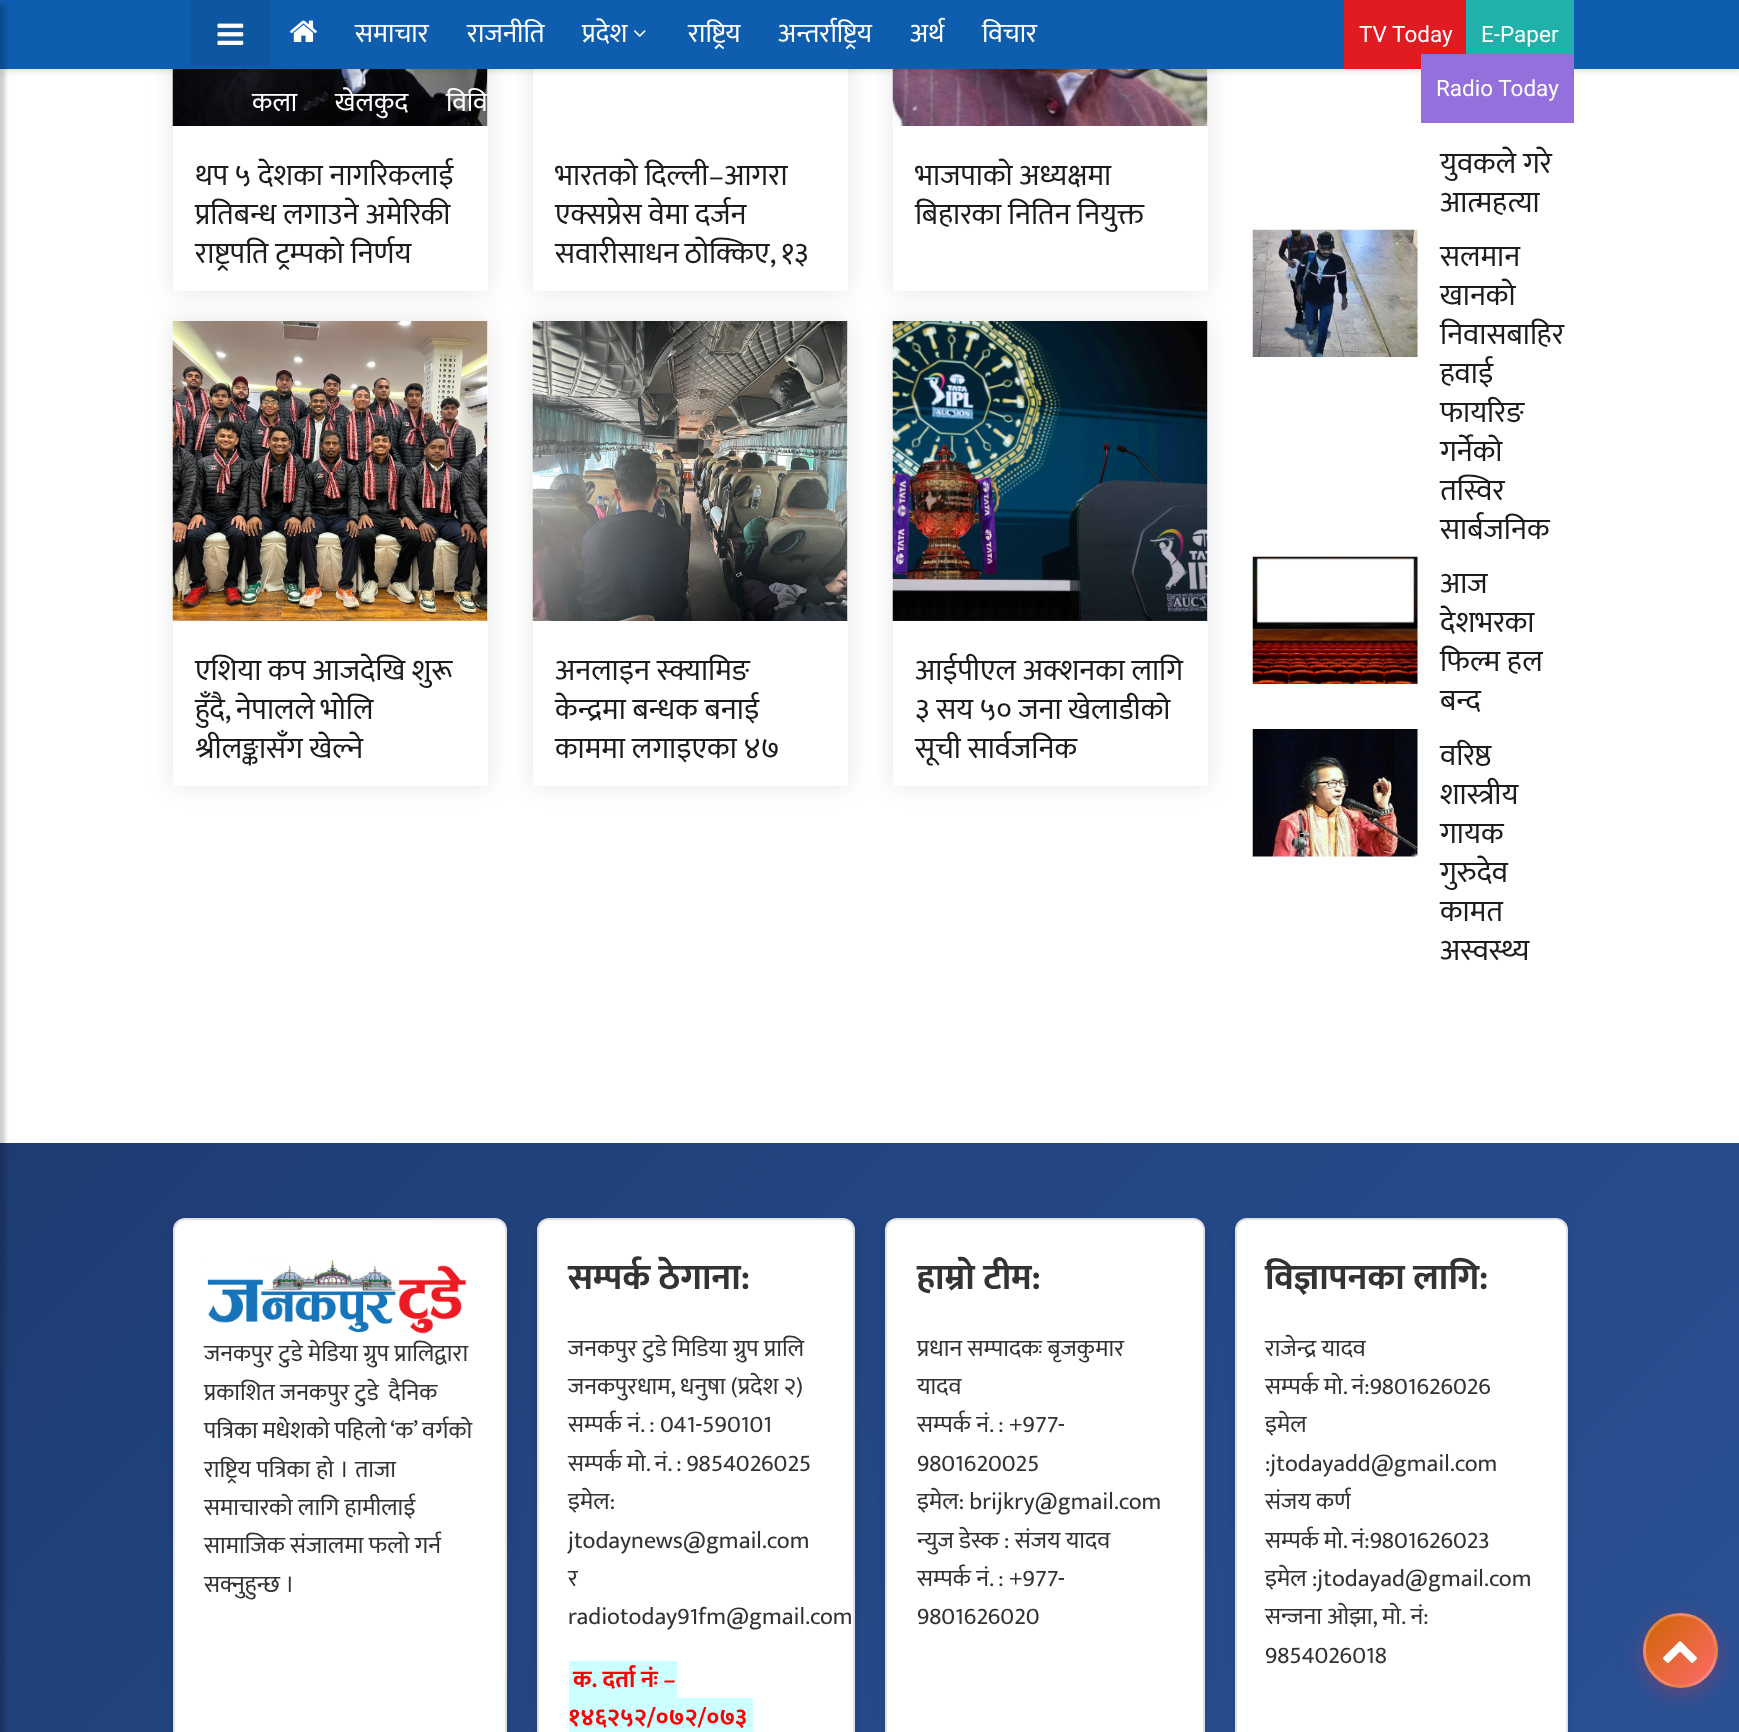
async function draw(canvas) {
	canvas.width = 1739;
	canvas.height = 1732;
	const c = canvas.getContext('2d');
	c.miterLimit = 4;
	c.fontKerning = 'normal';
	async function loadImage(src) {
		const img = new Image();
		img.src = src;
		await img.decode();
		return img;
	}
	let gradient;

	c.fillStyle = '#fff';
	c.fillRect(0, 0, 1739, 1732);
	c.save();
	c.beginPath();
	c.moveTo(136, 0);
	c.lineTo(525, 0);
	c.lineTo(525, 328);
	c.lineTo(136, 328);
	c.closePath();
	c.moveTo(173, -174);
	c.lineTo(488, -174);
	c.lineTo(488, 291);
	c.lineTo(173, 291);
	c.closePath();
	c.clip('evenodd');
	c.fillStyle = '#0000001a';
	c.filter = 'blur(12px)';
	c.beginPath();
	c.rect(173, -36, 315, 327);
	c.fill();
	c.filter = 'none';
	c.restore();
	c.drawImage(await loadImage('img4.png'), 172, 69, 316, 57);
	c.save();
	c.beginPath();
	c.moveTo(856, 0);
	c.lineTo(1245, 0);
	c.lineTo(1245, 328);
	c.lineTo(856, 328);
	c.closePath();
	c.moveTo(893, -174);
	c.lineTo(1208, -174);
	c.lineTo(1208, 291);
	c.lineTo(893, 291);
	c.closePath();
	c.clip('evenodd');
	c.fillStyle = '#0000001a';
	c.filter = 'blur(12px)';
	c.beginPath();
	c.rect(893, -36, 315, 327);
	c.fill();
	c.filter = 'none';
	c.restore();
	c.drawImage(await loadImage('img5.png'), 892, 69, 316, 57);
	c.fillStyle = '#00000033';
	c.filter = 'blur(4px)';
	c.beginPath();
	c.rect(0, 0, 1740, 69);
	c.fill();
	c.filter = 'none';
	c.save();
	c.beginPath();
	c.moveTo(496, 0);
	c.lineTo(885, 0);
	c.lineTo(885, 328);
	c.lineTo(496, 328);
	c.closePath();
	c.moveTo(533, -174);
	c.lineTo(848, -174);
	c.lineTo(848, 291);
	c.lineTo(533, 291);
	c.closePath();
	c.clip('evenodd');
	c.fillStyle = '#0000001a';
	c.filter = 'blur(12px)';
	c.beginPath();
	c.rect(533, -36, 315, 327);
	c.fill();
	c.filter = 'none';
	c.restore();
	c.fillStyle = '#0e5dae';
	c.fillRect(0, 0, 1739, 69);
	gradient = c.createLinearGradient(255, 888, 1485, 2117);
	gradient.addColorStop(0, '#1e3c72');
	gradient.addColorStop(1, '#2a5298');
	c.fillStyle = gradient;
	c.fillRect(0, 1143, 1739, 589);
	c.fillStyle = '#00000033';
	c.filter = 'blur(2px)';
	c.beginPath();
	c.rect(-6, 5, 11, 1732);
	c.fill();
	c.filter = 'none';
	c.fillStyle = '#0d56a0';
	c.fillRect(191, 0, 79, 66);
	c.drawImage(await loadImage('img1.png'), 217, 23, 27, 22);
	c.drawImage(await loadImage('img2.png'), 290, 20, 27, 22);
	c.font = '27px Ek Mukta';
	c.fillStyle = '#fff';
	for (const [text, x, y] of [
		['समाचार', 355, 42],
		['राजनीति', 467, 42],
		['प्रदेश', 582, 42],
	]) {
		c.fillText(text, x, y);
	}
	c.drawImage(await loadImage('img3.png'), 634, 30, 12, 7);
	for (const [text, x, y] of [
		['राष्ट्रिय', 688, 42],
		['अन्तर्राष्ट्रिय', 778, 42],
		['अर्थ', 910, 42],
		['विचार', 982, 42],
		['कला', 252, 111],
		['खेलकुद', 335, 111],
		['विवि', 446, 111],
	]) {
		c.fillText(text, x, y);
	}
	c.fillRect(521, 100, 1, 1);
	c.fillStyle = '#e11b22';
	c.fillRect(1344, 0, 122, 69);
	c.font = '22.5px Roboto';
	c.fillStyle = '#fff';
	c.fillText('TV Today', 1359, 42);
	c.fillStyle = '#20b2aa';
	c.fillRect(1466, 0, 108, 54);
	c.fillStyle = '#fff';
	c.fillText('E-Paper', 1481, 42);
	c.fillStyle = '#9370db';
	c.fillRect(1421, 54, 153, 69);
	c.fillStyle = '#fff';
	c.fillText('Radio Today', 1436, 96);
	c.font = '30px Ek Mukta';
	c.fillStyle = '#1c1c1c';
	for (const [text, x, y] of [
		['थप ५ देशका नागरिकलाई', 195, 185],
		['प्रतिबन्ध लगाउने अमेरिकी', 195, 224],
		['राष्ट्रपति ट्रम्पको निर्णय', 195, 263],
		['भारतको दिल्ली–आगरा', 555, 185],
		['एक्सप्रेस वेमा दर्जन', 555, 224],
	]) {
		c.fillText(text, x, y);
	}
	c.wordSpacing = '-1px';
	c.fillText('सवारीसाधन ठोक्किए, १३', 555, 263);
	c.wordSpacing = '0px';
	c.fillText('भाजपाको अध्यक्षमा', 915, 185);
	c.fillText('बिहारका नितिन नियुक्त', 915, 224);
	c.save();
	c.beginPath();
	c.moveTo(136, 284);
	c.lineTo(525, 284);
	c.lineTo(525, 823);
	c.lineTo(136, 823);
	c.closePath();
	c.moveTo(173, 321);
	c.lineTo(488, 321);
	c.lineTo(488, 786);
	c.lineTo(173, 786);
	c.closePath();
	c.clip('evenodd');
	c.fillStyle = '#0000001a';
	c.filter = 'blur(12px)';
	c.beginPath();
	c.rect(173, 321, 315, 465);
	c.fill();
	c.filter = 'none';
	c.restore();
	c.drawImage(await loadImage('img6.png'), 172, 321, 316, 300);
	c.fillText('एशिया कप आजदेखि शुरू', 195, 680);
	c.wordSpacing = '-1px';
	c.fillText('हुँदै, नेपालले भोलि', 195, 719);
	c.wordSpacing = '0px';
	c.fillText('श्रीलङ्कासँग खेल्ने', 195, 758);
	c.save();
	c.beginPath();
	c.moveTo(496, 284);
	c.lineTo(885, 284);
	c.lineTo(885, 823);
	c.lineTo(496, 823);
	c.closePath();
	c.moveTo(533, 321);
	c.lineTo(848, 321);
	c.lineTo(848, 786);
	c.lineTo(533, 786);
	c.closePath();
	c.clip('evenodd');
	c.fillStyle = '#0000001a';
	c.filter = 'blur(12px)';
	c.beginPath();
	c.rect(533, 321, 315, 465);
	c.fill();
	c.filter = 'none';
	c.restore();
	c.drawImage(await loadImage('img7.png'), 532, 321, 316, 300);
	for (const [text, x, y] of [
		['अनलाइन स्क्यामिङ', 555, 680],
		['केन्द्रमा बन्धक बनाई', 555, 719],
		['काममा लगाइएका ४७', 555, 758],
	]) {
		c.fillText(text, x, y);
	}
	c.save();
	c.beginPath();
	c.moveTo(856, 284);
	c.lineTo(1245, 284);
	c.lineTo(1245, 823);
	c.lineTo(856, 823);
	c.closePath();
	c.moveTo(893, 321);
	c.lineTo(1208, 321);
	c.lineTo(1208, 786);
	c.lineTo(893, 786);
	c.closePath();
	c.clip('evenodd');
	c.fillStyle = '#0000001a';
	c.filter = 'blur(12px)';
	c.beginPath();
	c.rect(893, 321, 315, 465);
	c.fill();
	c.filter = 'none';
	c.restore();
	c.drawImage(await loadImage('img8.png'), 892, 321, 316, 300);
	for (const [text, x, y] of [
		['आईपीएल अक्शनका लागि', 915, 680],
		['३ सय ५० जना खेलाडीको', 915, 719],
		['सूची सार्वजनिक', 915, 758],
		['युवकले गरे', 1440, 173],
		['आत्महत्या', 1440, 212],
	]) {
		c.fillText(text, x, y);
	}
	c.drawImage(await loadImage('img9.png'), 1252, 229, 166, 128);
	for (const [text, x, y] of [
		['सलमान', 1440, 266],
		['खानको', 1440, 305],
		['निवासबाहिर', 1440, 344],
		['हवाई', 1440, 383],
		['फायरिङ', 1440, 422],
		['गर्नेको', 1440, 461],
		['तस्विर', 1440, 500],
		['सार्बजनिक', 1440, 539],
	]) {
		c.fillText(text, x, y);
	}
	c.drawImage(await loadImage('img10.png'), 1252, 556, 166, 128);
	for (const [text, x, y] of [
		['आज', 1440, 593],
		['देशभरका', 1440, 632],
		['फिल्म हल', 1440, 671],
		['बन्द', 1440, 710],
	]) {
		c.fillText(text, x, y);
	}
	c.drawImage(await loadImage('img11.png'), 1252, 729, 166, 128);
	for (const [text, x, y] of [
		['वरिष्ठ', 1440, 765],
		['शास्त्रीय', 1440, 804],
		['गायक', 1440, 843],
		['गुरुदेव', 1440, 882],
		['कामत', 1440, 921],
		['अस्वस्थ्य', 1440, 960],
	]) {
		c.fillText(text, x, y);
	}
	c.fillStyle = '#0000001a';
	c.filter = 'blur(4.5px)';
	c.beginPath();
	c.roundRect(173, 1224, 334, 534, 12);
	c.fill();
	c.filter = 'none';
	c.fillStyle = '#fff';
	c.beginPath();
	c.roundRect(174, 1219, 332, 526, 11);
	c.fill();
	c.strokeStyle = '#e0e0e0';
	c.lineWidth = 2;
	c.stroke();
	c.drawImage(await loadImage('img12.png'), 204, 1260, 263, 74);
	c.font = '24px Ek Mukta';
	c.fillStyle = '#333';
	c.fillText('जनकपुर टुडे मेडिया ग्रुप प्रालिद्वारा', 204, 1361);
	c.fillText('प्रकाशित जनकपुर टुडे  दैनिक', 204, 1400);
	c.wordSpacing = '-0.5px';
	c.fillText('पत्रिका मधेशको पहिलो ‘क’ वर्गको', 204, 1438);
	c.wordSpacing = '0.5px';
	c.fillText('राष्ट्रिय पत्रिका हो । ताजा', 204, 1477);
	c.wordSpacing = '0px';
	for (const [text, x, y] of [
		['समाचारको लागि हामीलाई', 204, 1515],
		['सामाजिक संजालमा फलो गर्न', 204, 1553],
		['सक्नुहुन्छ ।', 204, 1592],
	]) {
		c.fillText(text, x, y);
	}
	c.fillStyle = '#0000001a';
	c.filter = 'blur(4.5px)';
	c.beginPath();
	c.roundRect(537, 1224, 318, 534, 12);
	c.fill();
	c.filter = 'none';
	c.fillStyle = '#fff';
	c.beginPath();
	c.roundRect(538, 1219, 316, 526, 11);
	c.fill();
	c.stroke();
	c.font = 'bold 36px Ek Mukta';
	c.fillStyle = '#333';
	c.fillText('सम्पर्क ठेगाना:', 568, 1289);
	c.font = '24px Ek Mukta';
	for (const [text, x, y] of [
		['जनकपुर टुडे मिडिया ग्रुप प्रालि', 568, 1356],
		['जनकपुरधाम, धनुषा (प्रदेश २)', 568, 1394],
		['सम्पर्क नं. : 041-590101', 568, 1432],
	]) {
		c.fillText(text, x, y);
	}
	c.wordSpacing = '-0.5px';
	c.fillText('सम्पर्क मो. नं. : 9854026025', 568, 1471);
	c.wordSpacing = '0px';
	for (const [text, x, y] of [
		['इमेल:', 568, 1509],
		['jtodaynews@gmail.com', 568, 1548],
		['र', 568, 1586],
		['radiotoday91fm@gmail.com', 568, 1624],
	]) {
		c.fillText(text, x, y);
	}
	c.fillStyle = '#cff';
	c.fillRect(569, 1661, 108, 37);
	c.font = 'bold 24px Ek Mukta';
	c.fillStyle = '#f00';
	c.fillText('क. दर्ता नंः –', 573, 1687);
	c.fillStyle = '#cff';
	c.fillRect(569, 1698, 184, 34);
	c.fillStyle = '#f00';
	c.fillText('१४६२५२/०७२/०७३', 568, 1725);
	c.fillStyle = '#0000001a';
	c.filter = 'blur(4.5px)';
	c.beginPath();
	c.roundRect(885, 1224, 320, 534, 12);
	c.fill();
	c.filter = 'none';
	c.fillStyle = '#fff';
	c.beginPath();
	c.roundRect(886, 1219, 318, 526, 11);
	c.fill();
	c.stroke();
	c.font = 'bold 36px Ek Mukta';
	c.fillStyle = '#333';
	c.fillText('हाम्रो टीम:', 917, 1289);
	c.font = '24px Ek Mukta';
	for (const [text, x, y] of [
		['प्रधान सम्पादकः बृजकुमार', 917, 1356],
		['यादव', 917, 1394],
		['सम्पर्क नं. : +977-', 917, 1432],
		['9801620025', 917, 1471],
		['इमेल: brijkry@gmail.com', 917, 1509],
		['न्युज डेस्क : संजय यादव', 917, 1548],
		['सम्पर्क नं. : +977-', 917, 1586],
		['9801626020', 917, 1624],
	]) {
		c.fillText(text, x, y);
	}
	c.fillStyle = '#0000001a';
	c.filter = 'blur(4.5px)';
	c.beginPath();
	c.roundRect(1235, 1224, 333, 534, 12);
	c.fill();
	c.filter = 'none';
	c.fillStyle = '#fff';
	c.beginPath();
	c.roundRect(1236, 1219, 331, 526, 11);
	c.fill();
	c.stroke();
	c.font = 'bold 36px Ek Mukta';
	c.fillStyle = '#333';
	c.fillText('विज्ञापनका लागि:', 1265, 1289);
	c.font = '24px Ek Mukta';
	c.fillText('राजेन्द्र यादव', 1265, 1356);
	c.wordSpacing = '-0.5px';
	c.fillText('सम्पर्क मो. नं:9801626026', 1265, 1394);
	c.wordSpacing = '0px';
	for (const [text, x, y] of [
		['इमेल', 1265, 1432],
		[':jtodayadd@gmail.com', 1265, 1471],
		['संजय कर्ण', 1265, 1509],
	]) {
		c.fillText(text, x, y);
	}
	c.wordSpacing = '-0.5px';
	c.fillText('सम्पर्क मो. नं:9801626023', 1265, 1548);
	c.wordSpacing = '0px';
	for (const [text, x, y] of [
		['इमेल :jtodayad@gmail.com', 1265, 1586],
		['सन्जना ओझा, मो. नं:', 1265, 1624],
		['9854026018', 1265, 1663],
	]) {
		c.fillText(text, x, y);
	}
	c.fillStyle = '#ff31314d';
	c.filter = 'blur(11px)';
	c.beginPath();
	c.roundRect(1643, 1619, 75, 75, 37.5);
	c.fill();
	c.filter = 'none';
	c.save();
	c.beginPath();
	c.roundRect(1643, 1613, 75, 75, 37.5);
	c.clip();
	gradient = c.createLinearGradient(1646, 1547, 1715, 1616);
	gradient.addColorStop(0, '#cf6403');
	gradient.addColorStop(1, '#ff6b6b');
	c.fillStyle = gradient;
	c.fillRect(1666, 1613, 29, 3);
	gradient = c.createLinearGradient(1577, 1616, 1646, 1685);
	gradient.addColorStop(0, '#cf6403');
	gradient.addColorStop(1, '#ff6b6b');
	c.fillStyle = gradient;
	c.fillRect(1643, 1636, 3, 29);
	gradient = c.createLinearGradient(1646, 1616, 1715, 1685);
	gradient.addColorStop(0, '#cf6403');
	gradient.addColorStop(1, '#ff6b6b');
	c.fillStyle = gradient;
	c.fillRect(1646, 1616, 69, 69);
	gradient = c.createLinearGradient(1715, 1616, 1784, 1685);
	gradient.addColorStop(0, '#cf6403');
	gradient.addColorStop(1, '#ff6b6b');
	c.fillStyle = gradient;
	c.fillRect(1715, 1636, 3, 29);
	gradient = c.createLinearGradient(1646, 1685, 1715, 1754);
	gradient.addColorStop(0, '#cf6403');
	gradient.addColorStop(1, '#ff6b6b');
	c.fillStyle = gradient;
	c.fillRect(1666, 1685, 29, 3);
	c.restore();
	c.beginPath();
	c.arc(1680.5, 1650.5, 36, 0, 2 * Math.PI);
	c.strokeStyle = '#ffffff33';
	c.lineWidth = 3;
	c.stroke();
	c.drawImage(await loadImage('img13.png'), 1663, 1641, 34, 22);
}

draw(document.querySelector('canvas'));
